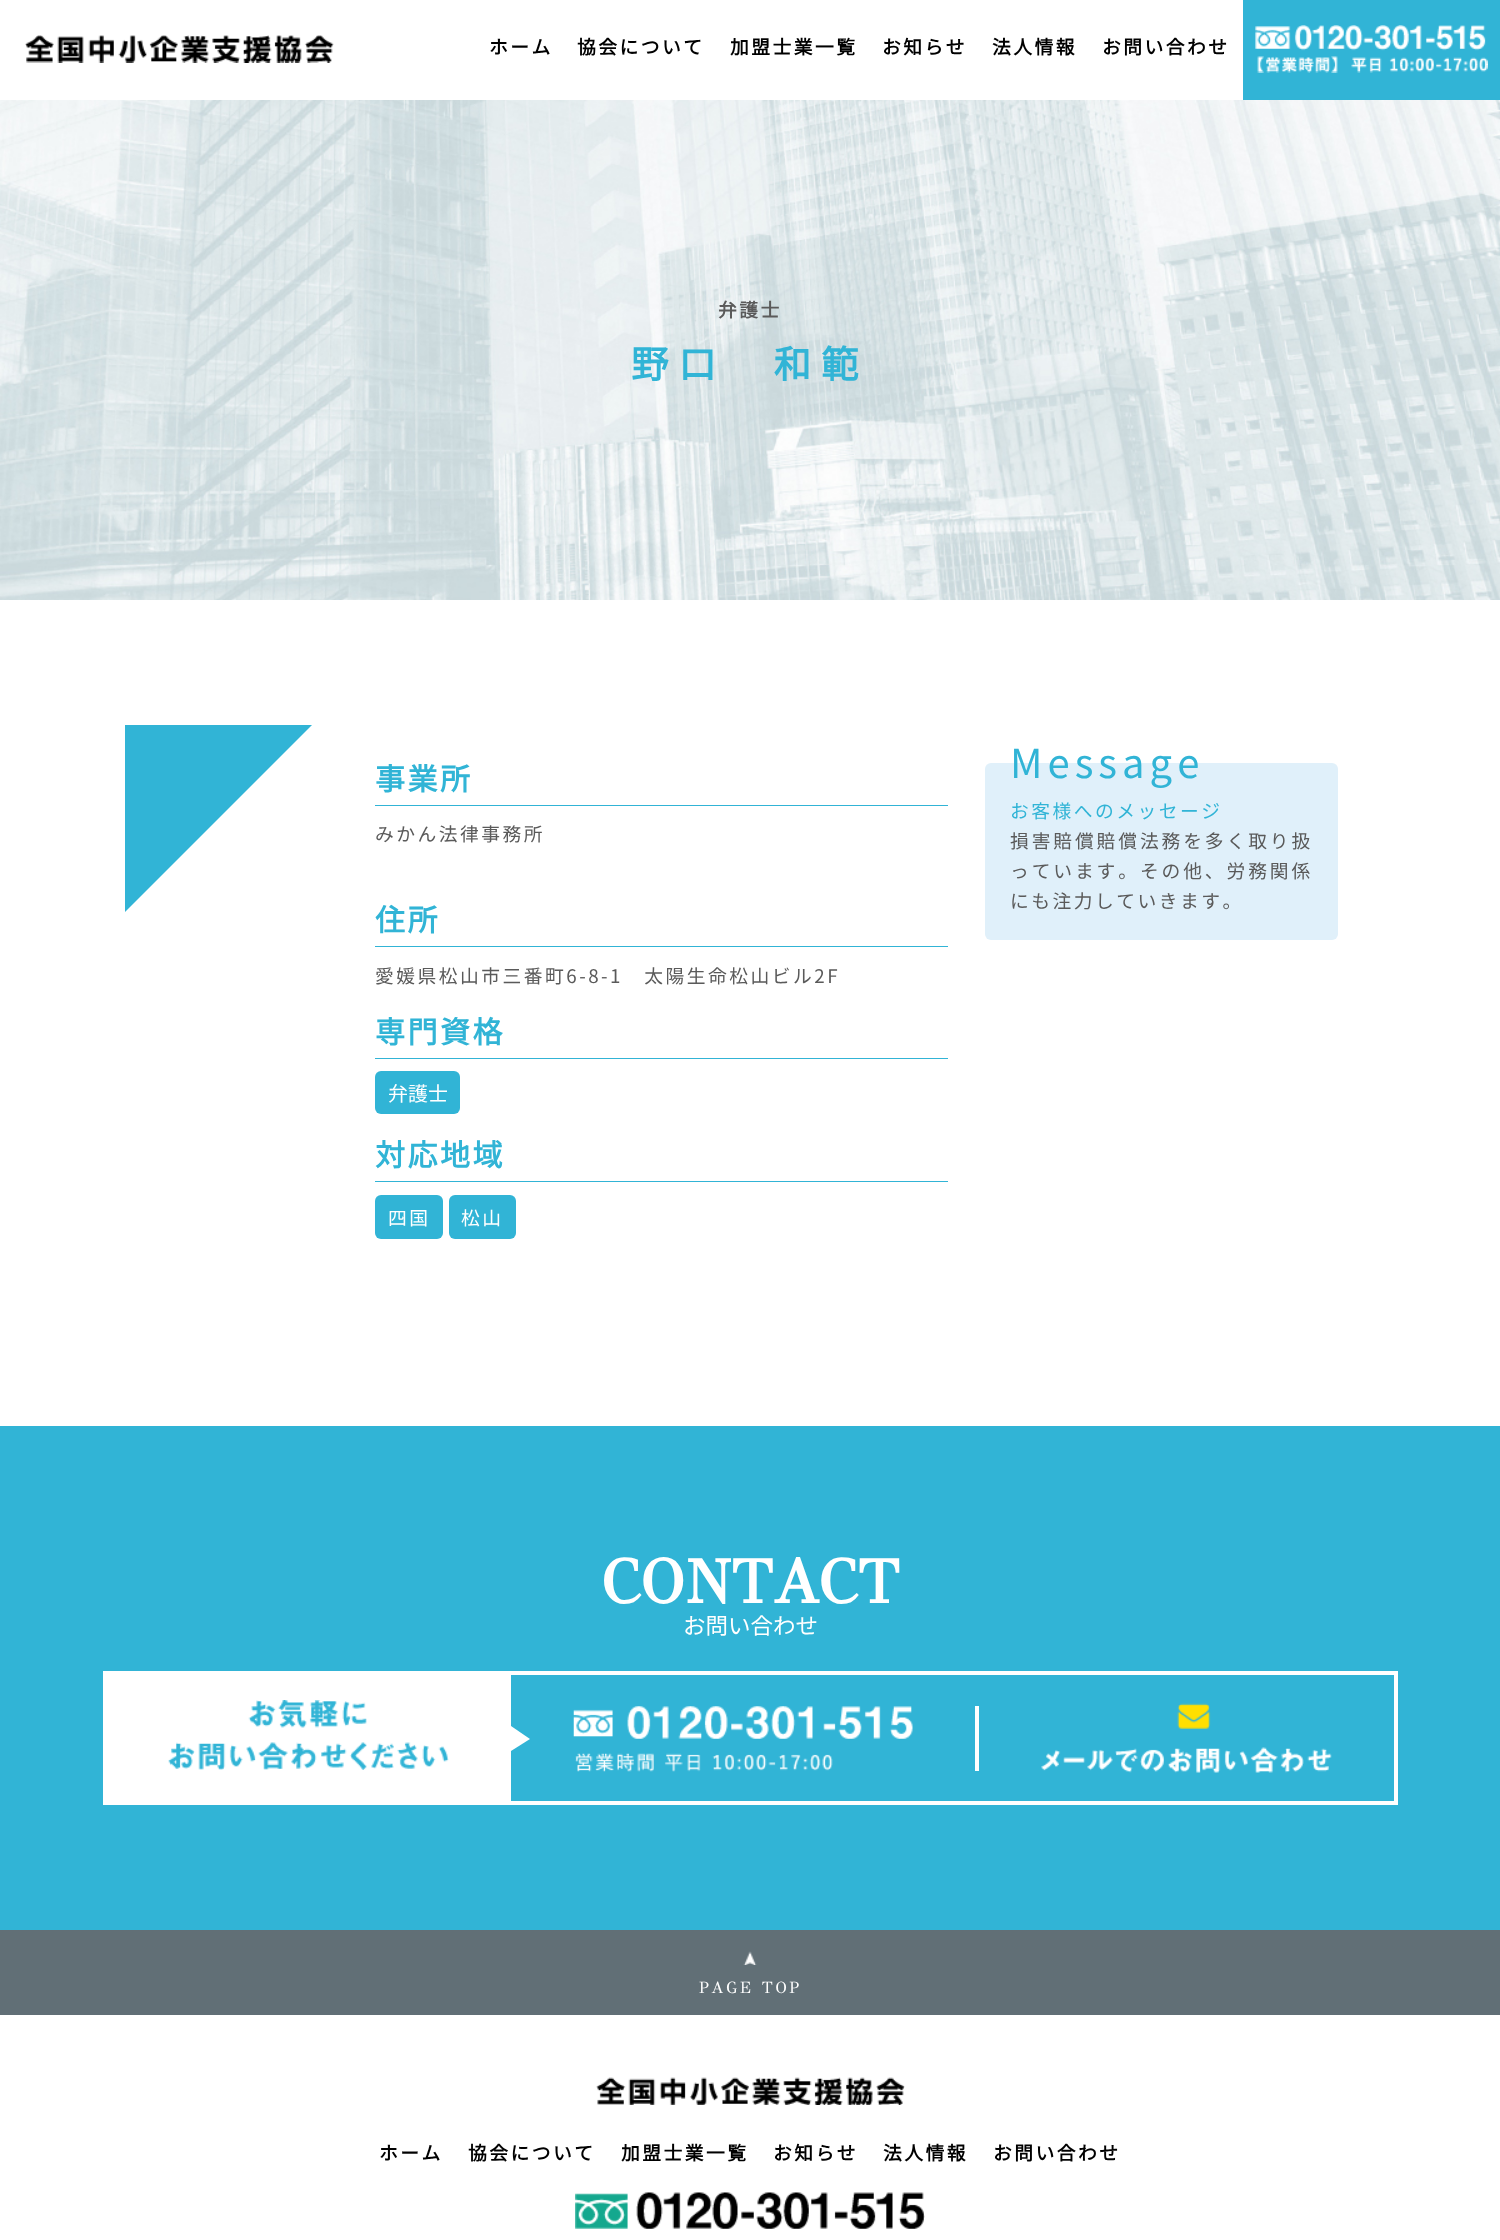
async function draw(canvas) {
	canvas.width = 1500;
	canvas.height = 2240;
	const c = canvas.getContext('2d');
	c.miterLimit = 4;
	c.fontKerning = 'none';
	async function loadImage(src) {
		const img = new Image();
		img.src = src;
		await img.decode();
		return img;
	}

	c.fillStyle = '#fff';
	c.fillRect(0, 0, 1500, 2240);
	c.drawImage(await loadImage('img1.png'), 25, 35, 309, 28);
	c.letterSpacing = '2.5px';
	c.font = 'bold 18.75px Noto Sans JP';
	c.fillStyle = '#000';
	for (const [text, x, y] of [
		['ホーム', 489, 54],
		['協会について', 577, 54],
		['加盟士業一覧', 730, 54],
		['お知らせ', 882, 54],
		['法人情報', 992, 54],
		['お問い合わせ', 1102, 54],
	]) {
		c.fillText(text, x, y);
	}
	c.fillStyle = '#31b4d6';
	c.fillRect(1243, 0, 257, 100);
	c.drawImage(await loadImage('img2.png'), 1255, 25, 233, 48);
	c.drawImage(await loadImage('img3.png'), 0, 100, 1500, 500);
	c.fillStyle = '#5a5a5a';
	c.fillText('弁護士', 718, 317);
	c.letterSpacing = '10px';
	c.font = 'bold 37.5px Noto Sans JP';
	c.fillStyle = '#31b4d6';
	c.fillText('野口　和範', 631, 378);
	c.beginPath();
	c.moveTo(125, 725);
	c.lineTo(312, 725);
	c.lineTo(125, 912);
	c.closePath();
	c.fill();
	c.fillRect(375, 805, 573, 1);
	c.letterSpacing = '2.5px';
	c.font = 'bold 30px Noto Sans JP';
	c.fillText('事業所', 375, 790);
	c.font = '100 18.75px Noto Sans JP';
	c.fillStyle = '#5a5a5a';
	c.fillText('みかん法律事務所', 375, 841);
	c.fillStyle = '#31b4d6';
	c.fillRect(375, 946, 573, 1);
	c.font = 'bold 30px Noto Sans JP';
	c.fillText('住所', 375, 931);
	c.font = '100 18.75px Noto Sans JP';
	c.fillStyle = '#5a5a5a';
	c.fillText('愛媛県松山市三番町6-8-1　太陽生命松山ビル2F', 375, 983);
	c.fillStyle = '#31b4d6';
	c.fillRect(375, 1058, 573, 1);
	c.font = 'bold 30px Noto Sans JP';
	c.fillText('専門資格', 375, 1043);
	c.beginPath();
	c.roundRect(375, 1071, 85, 43, 6);
	c.fill();
	c.letterSpacing = '0px';
	c.font = '100 20px Noto Sans JP';
	c.fillStyle = '#fff';
	c.fillText('弁護士', 388, 1101);
	c.fillStyle = '#31b4d6';
	c.fillRect(375, 1181, 573, 1);
	c.letterSpacing = '2.5px';
	c.font = 'bold 30px Noto Sans JP';
	c.fillText('対応地域', 375, 1166);
	c.beginPath();
	c.roundRect(375, 1195, 68, 44, 6);
	c.fill();
	c.font = '100 18.75px Noto Sans JP';
	c.fillStyle = '#fff';
	c.fillText('四国', 388, 1225);
	c.fillStyle = '#31b4d6';
	c.beginPath();
	c.roundRect(449, 1195, 67, 44, 6);
	c.fill();
	c.fillStyle = '#fff';
	c.fillText('松山', 461, 1225);
	c.fillStyle = '#e0f0fa';
	c.beginPath();
	c.roundRect(985, 763, 353, 177, 6);
	c.fill();
	c.letterSpacing = '5px';
	c.font = '100 40px Noto Sans JP';
	c.fillStyle = '#31b4d6';
	c.fillText('Message', 1010, 778);
	c.letterSpacing = '2.5px';
	c.font = '100 18.75px Noto Sans JP';
	c.fillText('お客様へのメッセージ', 1010, 818);
	c.letterSpacing = '2.9px';
	c.fillStyle = '#5a5a5a';
	c.fillText('損害賠償賠償法務を多く取り扱', 1010, 848);
	c.fillText('っています。その他、労務関係', 1010, 878);
	c.letterSpacing = '2.5px';
	c.fillText('にも注力していきます。', 1010, 908);
	c.fillStyle = '#31b4d6';
	c.fillRect(0, 1426, 1500, 504);
	c.letterSpacing = '0px';
	c.font = 'bold 62.5px GFS Didot';
	c.fillStyle = '#fff';
	c.fillText('CONTACT', 602, 1603);
	c.font = '100 22.5px Noto Sans JP';
	c.fillText('お問い合わせ', 683, 1634);
	c.strokeStyle = '#fff';
	c.lineWidth = 4;
	c.strokeRect(105, 1673, 1291, 130);
	c.fillRect(107, 1675, 404, 126);
	c.drawImage(await loadImage('img4.png'), 168, 1700, 281, 70);
	c.beginPath();
	c.moveTo(511, 1751);
	c.lineTo(511, 1726);
	c.lineTo(530, 1739);
	c.closePath();
	c.fill();
	c.fillRect(975, 1706, 4, 65);
	c.drawImage(await loadImage('img5.png'), 573, 1706, 340, 66);
	c.drawImage(await loadImage('img6.png'), 1041, 1703, 291, 70);
	c.fillStyle = '#616f76';
	c.fillRect(0, 1930, 1500, 85);
	c.drawImage(await loadImage('img7.png'), 743, 1951, 14, 14);
	c.letterSpacing = '2.5px';
	c.font = '16.25px GFS Didot';
	c.fillStyle = '#fff';
	c.fillText('PAGE TOP', 699, 1993);
	c.drawImage(await loadImage('img8.png'), 596, 2077, 309, 28);
	c.font = 'bold 18.75px Noto Sans JP';
	c.fillStyle = '#000';
	for (const [text, x, y] of [
		['ホーム', 379, 2160],
		['協会について', 468, 2160],
		['加盟士業一覧', 621, 2160],
		['お知らせ', 773, 2160],
		['法人情報', 883, 2160],
		['お問い合わせ', 993, 2160],
	]) {
		c.fillText(text, x, y);
	}
	c.drawImage(await loadImage('img9.png'), 575, 2192, 350, 37);
}

draw(document.querySelector('canvas'));
